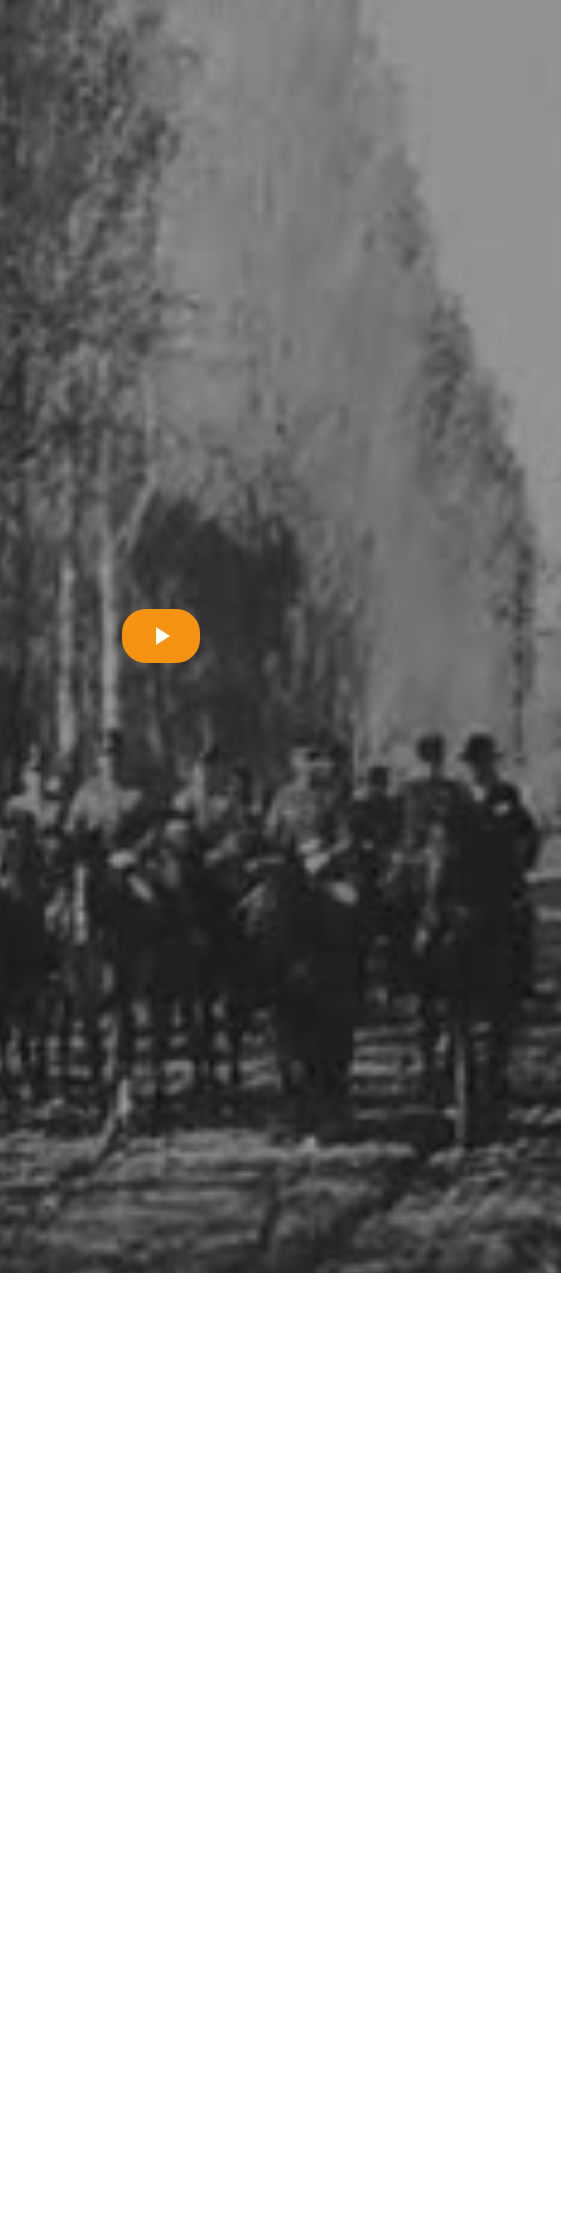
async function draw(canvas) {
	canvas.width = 561;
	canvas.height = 2227;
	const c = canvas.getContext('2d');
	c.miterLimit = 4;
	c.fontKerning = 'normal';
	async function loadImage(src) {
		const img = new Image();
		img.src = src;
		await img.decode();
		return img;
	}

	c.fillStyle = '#fff';
	c.fillRect(0, 0, 561, 2227);
	c.drawImage(await loadImage('img1.png'), 0, 0, 561, 1273);
	c.fillStyle = '#f79312';
	c.beginPath();
	c.roundRect(124.5, 611.5, 73, 49, 21.5);
	c.fill();
	c.strokeStyle = '#f79312';
	c.lineWidth = 5;
	c.stroke();
	c.fillStyle = '#fff';
	c.beginPath();
	c.moveTo(156, 627);
	c.lineTo(156, 645);
	c.lineTo(170, 636);
	c.closePath();
	c.fill();
}

draw(document.querySelector('canvas'));
